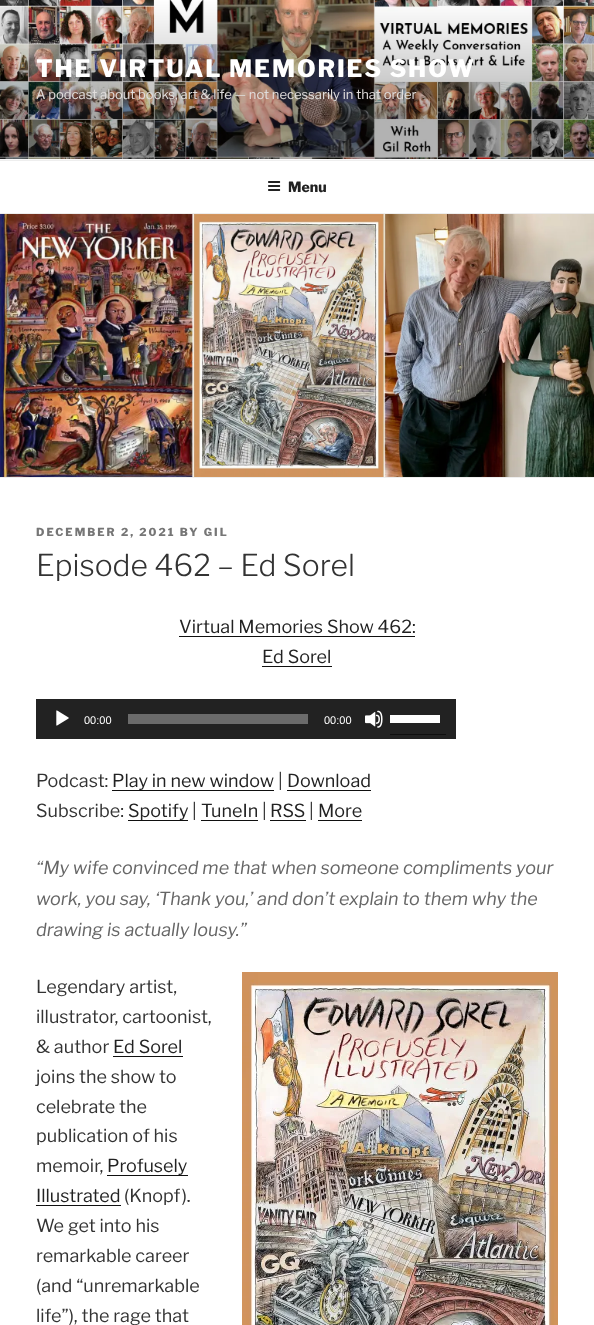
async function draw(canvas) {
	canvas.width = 594;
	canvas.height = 1325;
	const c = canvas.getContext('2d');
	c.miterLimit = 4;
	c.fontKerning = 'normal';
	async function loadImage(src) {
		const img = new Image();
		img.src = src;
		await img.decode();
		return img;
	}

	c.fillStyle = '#fff';
	c.fillRect(0, 0, 594, 1325);
	c.fillStyle = '#fafafa';
	c.fillRect(0, 159, 594, 1);
	c.drawImage(await loadImage('img1.png'), 0, 0, 594, 159);
	c.letterSpacing = '1.9px';
	c.font = '100 24px Libre Franklin';
	c.fillStyle = '#fff';
	c.fillText('THE VIRTUAL MEMORIES SHOW', 36, 77);
	c.letterSpacing = '0px';
	c.font = '100 13px "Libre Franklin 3"';
	c.fillStyle = '#e0dddc';
	c.fillText('A podcast about books, art & life — not necessarily in that order', 36, 99);
	c.fillStyle = '#eee';
	c.fillRect(0, 160, 594, 1);
	c.fillRect(0, 213, 594, 1);
	c.drawImage(await loadImage('img2.png'), 268, 181, 13, 10);
	c.font = '100 14px Libre Franklin';
	c.fillStyle = '#222';
	c.fillText('Menu', 288, 192);
	c.fillStyle = '#eee';
	c.fillRect(0, 477, 594, 1);
	c.drawImage(await loadImage('img3.png'), 0, 214, 594, 263);
	c.letterSpacing = '2px';
	c.font = '100 11px Libre Franklin';
	c.fillStyle = '#767676';
	c.fillText('DECEMBER 2, 2021 BY GIL', 36, 536);
	c.letterSpacing = '0px';
	c.font = '100 30px "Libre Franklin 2"';
	c.fillStyle = '#333';
	c.fillText('Episode 462 – Ed Sorel', 36, 576);
	c.font = '100 18px "Libre Franklin 3"';
	c.fillStyle = '#222';
	c.fillText('Virtual Memories Show 462:', 179, 633);
	c.fillStyle = '#0f0f0f';
	c.fillRect(179, 636, 236, 1);
	c.fillStyle = '#222';
	c.fillText('Ed Sorel', 262, 663);
	c.fillStyle = '#0f0f0f';
	c.fillRect(262, 666, 70, 1);
	c.fillStyle = '#222';
	c.fillRect(36, 699, 420, 40);
	c.drawImage(await loadImage('img4.png'), 56, 710, 13, 16);
	c.font = '11px Liberation Sans';
	c.fillStyle = '#fff';
	c.fillText('00:00', 84, 724);
	c.fillStyle = '#6b6b6b';
	c.fillRect(128, 714, 180, 10);
	c.fillStyle = '#fff';
	c.fillText('00:00', 324, 724);
	c.drawImage(await loadImage('img5.png'), 365, 710, 18, 18);
	c.fillStyle = '#0f0f0f';
	c.fillRect(390, 734, 56, 1);
	c.fillStyle = '#fff';
	c.fillRect(390, 715, 50, 8);
	c.font = '100 18px "Libre Franklin 3"';
	c.fillStyle = '#333';
	c.fillText('Podcast:', 36, 787);
	c.fillStyle = '#222';
	c.fillText('Play in new window', 112, 787);
	c.fillStyle = '#0f0f0f';
	c.fillRect(112, 790, 162, 1);
	c.fillStyle = '#333';
	c.fillText('|', 278, 787);
	c.fillStyle = '#222';
	c.fillText('Download', 287, 787);
	c.fillStyle = '#0f0f0f';
	c.fillRect(287, 790, 84, 1);
	c.fillStyle = '#333';
	c.fillText('Subscribe:', 36, 817);
	c.fillStyle = '#222';
	c.fillText('Spotify', 128, 817);
	c.fillStyle = '#0f0f0f';
	c.fillRect(128, 820, 60, 1);
	c.fillStyle = '#333';
	c.fillText('|', 192, 817);
	c.fillStyle = '#222';
	c.fillText('TuneIn', 201, 817);
	c.fillStyle = '#0f0f0f';
	c.fillRect(201, 820, 57, 1);
	c.fillStyle = '#333';
	c.fillText('|', 262, 817);
	c.fillStyle = '#222';
	c.fillText('RSS', 270, 817);
	c.fillStyle = '#0f0f0f';
	c.fillRect(270, 820, 36, 1);
	c.fillStyle = '#333';
	c.fillText('|', 309, 817);
	c.fillStyle = '#222';
	c.fillText('More', 318, 817);
	c.fillStyle = '#0f0f0f';
	c.fillRect(318, 820, 44, 1);
	c.font = 'italic 100 18px Libre Franklin';
	c.fillStyle = '#666';
	for (const [text, x, y] of [
		['“My wife convinced me that when someone compliments your', 36, 874],
		['work, you say, ‘Thank you,’ and don’t explain to them why the', 36, 905],
		['drawing is actually lousy.”', 36, 936],
	]) {
		c.fillText(text, x, y);
	}
	c.font = '100 18px "Libre Franklin 3"';
	c.fillStyle = '#333';
	c.fillText('Legendary artist,', 36, 993);
	c.drawImage(await loadImage('img6.png'), 242, 972, 316, 353);
	c.fillText('illustrator, cartoonist,', 36, 1023);
	c.fillText('& author', 36, 1053);
	c.fillStyle = '#222';
	c.fillText('Ed Sorel', 113, 1053);
	c.fillStyle = '#0f0f0f';
	c.fillRect(113, 1056, 70, 1);
	c.fillStyle = '#333';
	for (const [text, x, y] of [
		['joins the show to', 36, 1083],
		['celebrate the', 36, 1113],
		['publication of his', 36, 1142],
		['memoir,', 36, 1172],
	]) {
		c.fillText(text, x, y);
	}
	c.fillStyle = '#222';
	c.fillText('Profusely', 107, 1172);
	c.fillStyle = '#0f0f0f';
	c.fillRect(107, 1175, 81, 1);
	c.fillStyle = '#222';
	c.fillText('Illustrated', 36, 1202);
	c.fillStyle = '#0f0f0f';
	c.fillRect(36, 1205, 85, 1);
	c.fillStyle = '#333';
	for (const [text, x, y] of [
		['(Knopf).', 124, 1202],
		['We get into his', 36, 1232],
		['remarkable career', 36, 1262],
		['(and “unremarkable', 36, 1292],
		['life”), the rage that', 36, 1322],
	]) {
		c.fillText(text, x, y);
	}
}

draw(document.querySelector('canvas'));
